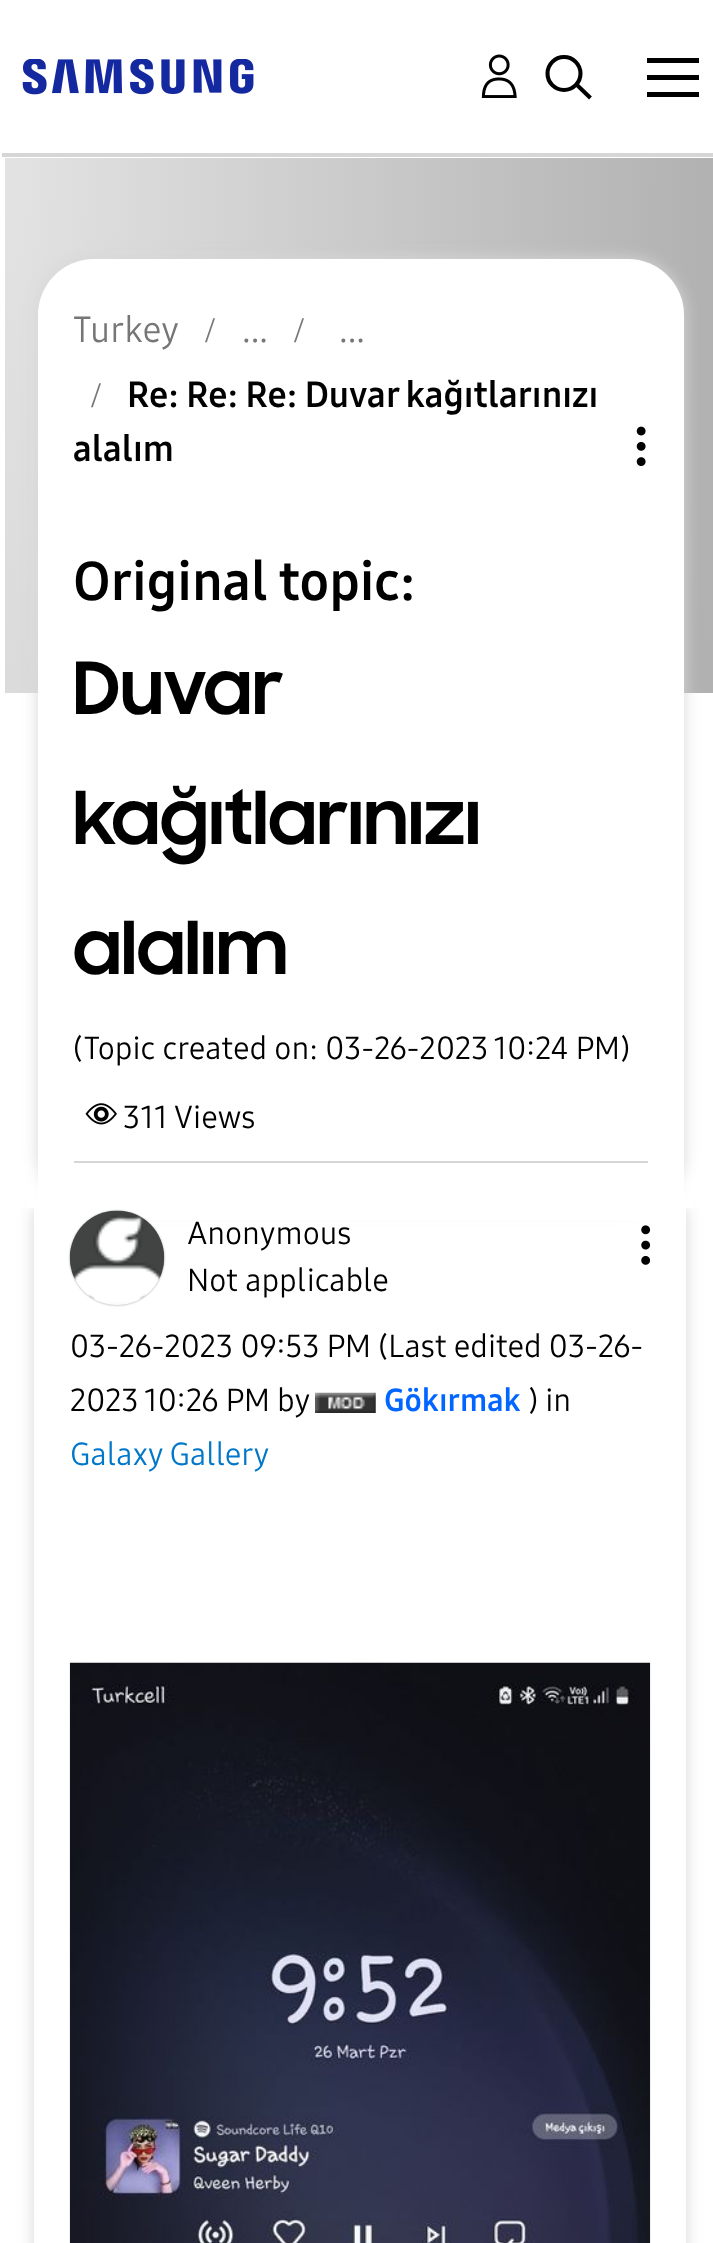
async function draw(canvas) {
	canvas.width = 713;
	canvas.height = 2243;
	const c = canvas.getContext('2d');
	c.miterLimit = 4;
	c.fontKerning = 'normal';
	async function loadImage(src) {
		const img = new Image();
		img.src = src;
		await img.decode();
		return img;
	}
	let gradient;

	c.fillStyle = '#fff';
	c.fillRect(0, 0, 713, 2243);
	c.save();
	c.beginPath();
	c.moveTo(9, 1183);
	c.lineTo(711, 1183);
	c.lineTo(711, 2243);
	c.lineTo(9, 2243);
	c.closePath();
	c.moveTo(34, 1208);
	c.lineTo(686, 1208);
	c.lineTo(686, 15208);
	c.lineTo(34, 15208);
	c.closePath();
	c.clip('evenodd');
	c.fillStyle = '#d6d6d6';
	c.filter = 'blur(8px)';
	c.beginPath();
	c.rect(34, 1208, 652, 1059);
	c.fill();
	c.filter = 'none';
	c.restore();
	c.fillRect(25, 1196, 670, 12);
	c.drawImage(await loadImage('img1.png'), 481, 54, 36, 44);
	c.beginPath();
	c.arc(564, 73.5, 16.5, 0, 2 * Math.PI);
	c.strokeStyle = '#000';
	c.lineWidth = 4.1;
	c.stroke();
	c.beginPath();
	c.moveTo(578, 86);
	c.lineTo(589, 96.5);
	c.lineCap = 'square';
	c.stroke();
	c.fillStyle = '#000';
	c.beginPath();
	c.moveTo(699, 92);
	c.lineTo(699, 97);
	c.lineTo(647, 97);
	c.lineTo(647, 92);
	c.closePath();
	c.moveTo(699, 75);
	c.lineTo(699, 80);
	c.lineTo(647, 80);
	c.lineTo(647, 75);
	c.closePath();
	c.moveTo(699, 58);
	c.lineTo(699, 63);
	c.lineTo(647, 63);
	c.lineTo(647, 58);
	c.closePath();
	c.fill();
	c.fillStyle = '#d6d6d6';
	c.fillRect(2, 153, 711, 4);
	c.drawImage(await loadImage('img2.png'), 22, 59, 232, 36);
	gradient = c.createRadialGradient(4.5, 33.67, 0, 4.5, 33.67, 713);
	gradient.addColorStop(0, '#e3e3e3');
	gradient.addColorStop(1, '#b1b1b1');
	c.fillStyle = gradient;
	c.beginPath();
	c.rect(5, 158, 708, 535);
	c.save();
	c.clip();
	c.scale(1, 3240 / 713);
	c.fillRect(0, 0, 713, 494);
	c.restore();
	c.fillStyle = '#d6d6d6';
	c.filter = 'blur(8px)';
	c.beginPath();
	c.roundRect(38, 259, 646, 949, 56);
	c.fill();
	c.filter = 'none';
	c.fillStyle = '#fff';
	c.beginPath();
	c.roundRect(38, 259, 646, 949, [56, 56, 0, 0]);
	c.fill();
	c.fillStyle = '#d6d6d6';
	c.fillRect(74, 1161, 574, 2);
	c.font = '36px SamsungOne';
	c.fillStyle = '#767676';
	c.fillText('Turkey', 73, 342);
	c.font = '36px Liberation Serif';
	c.fillText('/', 205, 342);
	c.font = '36px SamsungOne';
	c.fillText('...', 242, 342);
	c.font = '36px Liberation Serif';
	c.fillText('/', 294, 342);
	c.font = '36px SamsungOne';
	c.fillText('...', 339, 342);
	c.font = '36px Liberation Serif';
	c.fillText('/', 91, 407);
	c.font = 'bold 36px SamsungOne';
	c.fillStyle = '#000';
	c.fillText('Re: Re: Re: Duvar kağıtlarınızı', 127, 407);
	c.fillText('alalım', 73, 461);
	c.font = 'bold 54px SamsungOne';
	c.fillText('Original topic:', 73, 600);
	c.drawImage(await loadImage('img3.png'), 636, 426, 10, 40);
	c.font = 'bold 72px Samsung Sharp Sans';
	for (const [text, x, y] of [
		['Duvar', 73, 714],
		['kağıtlarınızı', 73, 844],
		['alalım', 73, 974],
	]) {
		c.fillText(text, x, y);
	}
	c.font = '31.5px SamsungOne';
	c.fillText('(Topic created on: 03-26-2023 10:24 PM)', 73, 1059);
	c.drawImage(await loadImage('img4.png'), 85, 1103, 32, 22);
	c.fillText('311 Views', 123, 1128);
	c.fillStyle = '#fff';
	c.fillRect(41, 1208, 641, 9);
	c.fillRect(77, 1217, 568, 3);
	c.fillStyle = '#999';
	c.filter = 'blur(1px)';
	c.beginPath();
	c.roundRect(70, 1211, 94, 94, 47);
	c.fill();
	c.filter = 'none';
	c.drawImage(await loadImage('img5.png'), 69, 1210, 96, 95);
	c.fillStyle = '#000';
	c.fillText('Anonymous', 187, 1244);
	c.fillText('Not applicable', 187, 1291);
	c.drawImage(await loadImage('img6.png'), 641, 1225, 10, 40);
	for (const [text, x, y] of [
		['03-26-2023 09:53 PM (Last edited 03-26-', 70, 1357],
		['2023', 70, 1411],
		['10:26 PM by', 144, 1411],
	]) {
		c.fillText(text, x, y);
	}
	c.drawImage(await loadImage('img7.png'), 315, 1392, 61, 21);
	c.font = 'bold 31.5px SamsungOne';
	c.fillStyle = '#06f';
	c.fillText('Gökırmak', 384, 1411);
	c.font = '31.5px SamsungOne';
	c.fillStyle = '#000';
	c.fillText(') in', 528, 1411);
	c.fillStyle = '#0077c8';
	c.fillText('Galaxy Gallery', 70, 1465);
	c.drawImage(await loadImage('img8.png'), 69, 1662, 582, 581);
}

draw(document.querySelector('canvas'));
